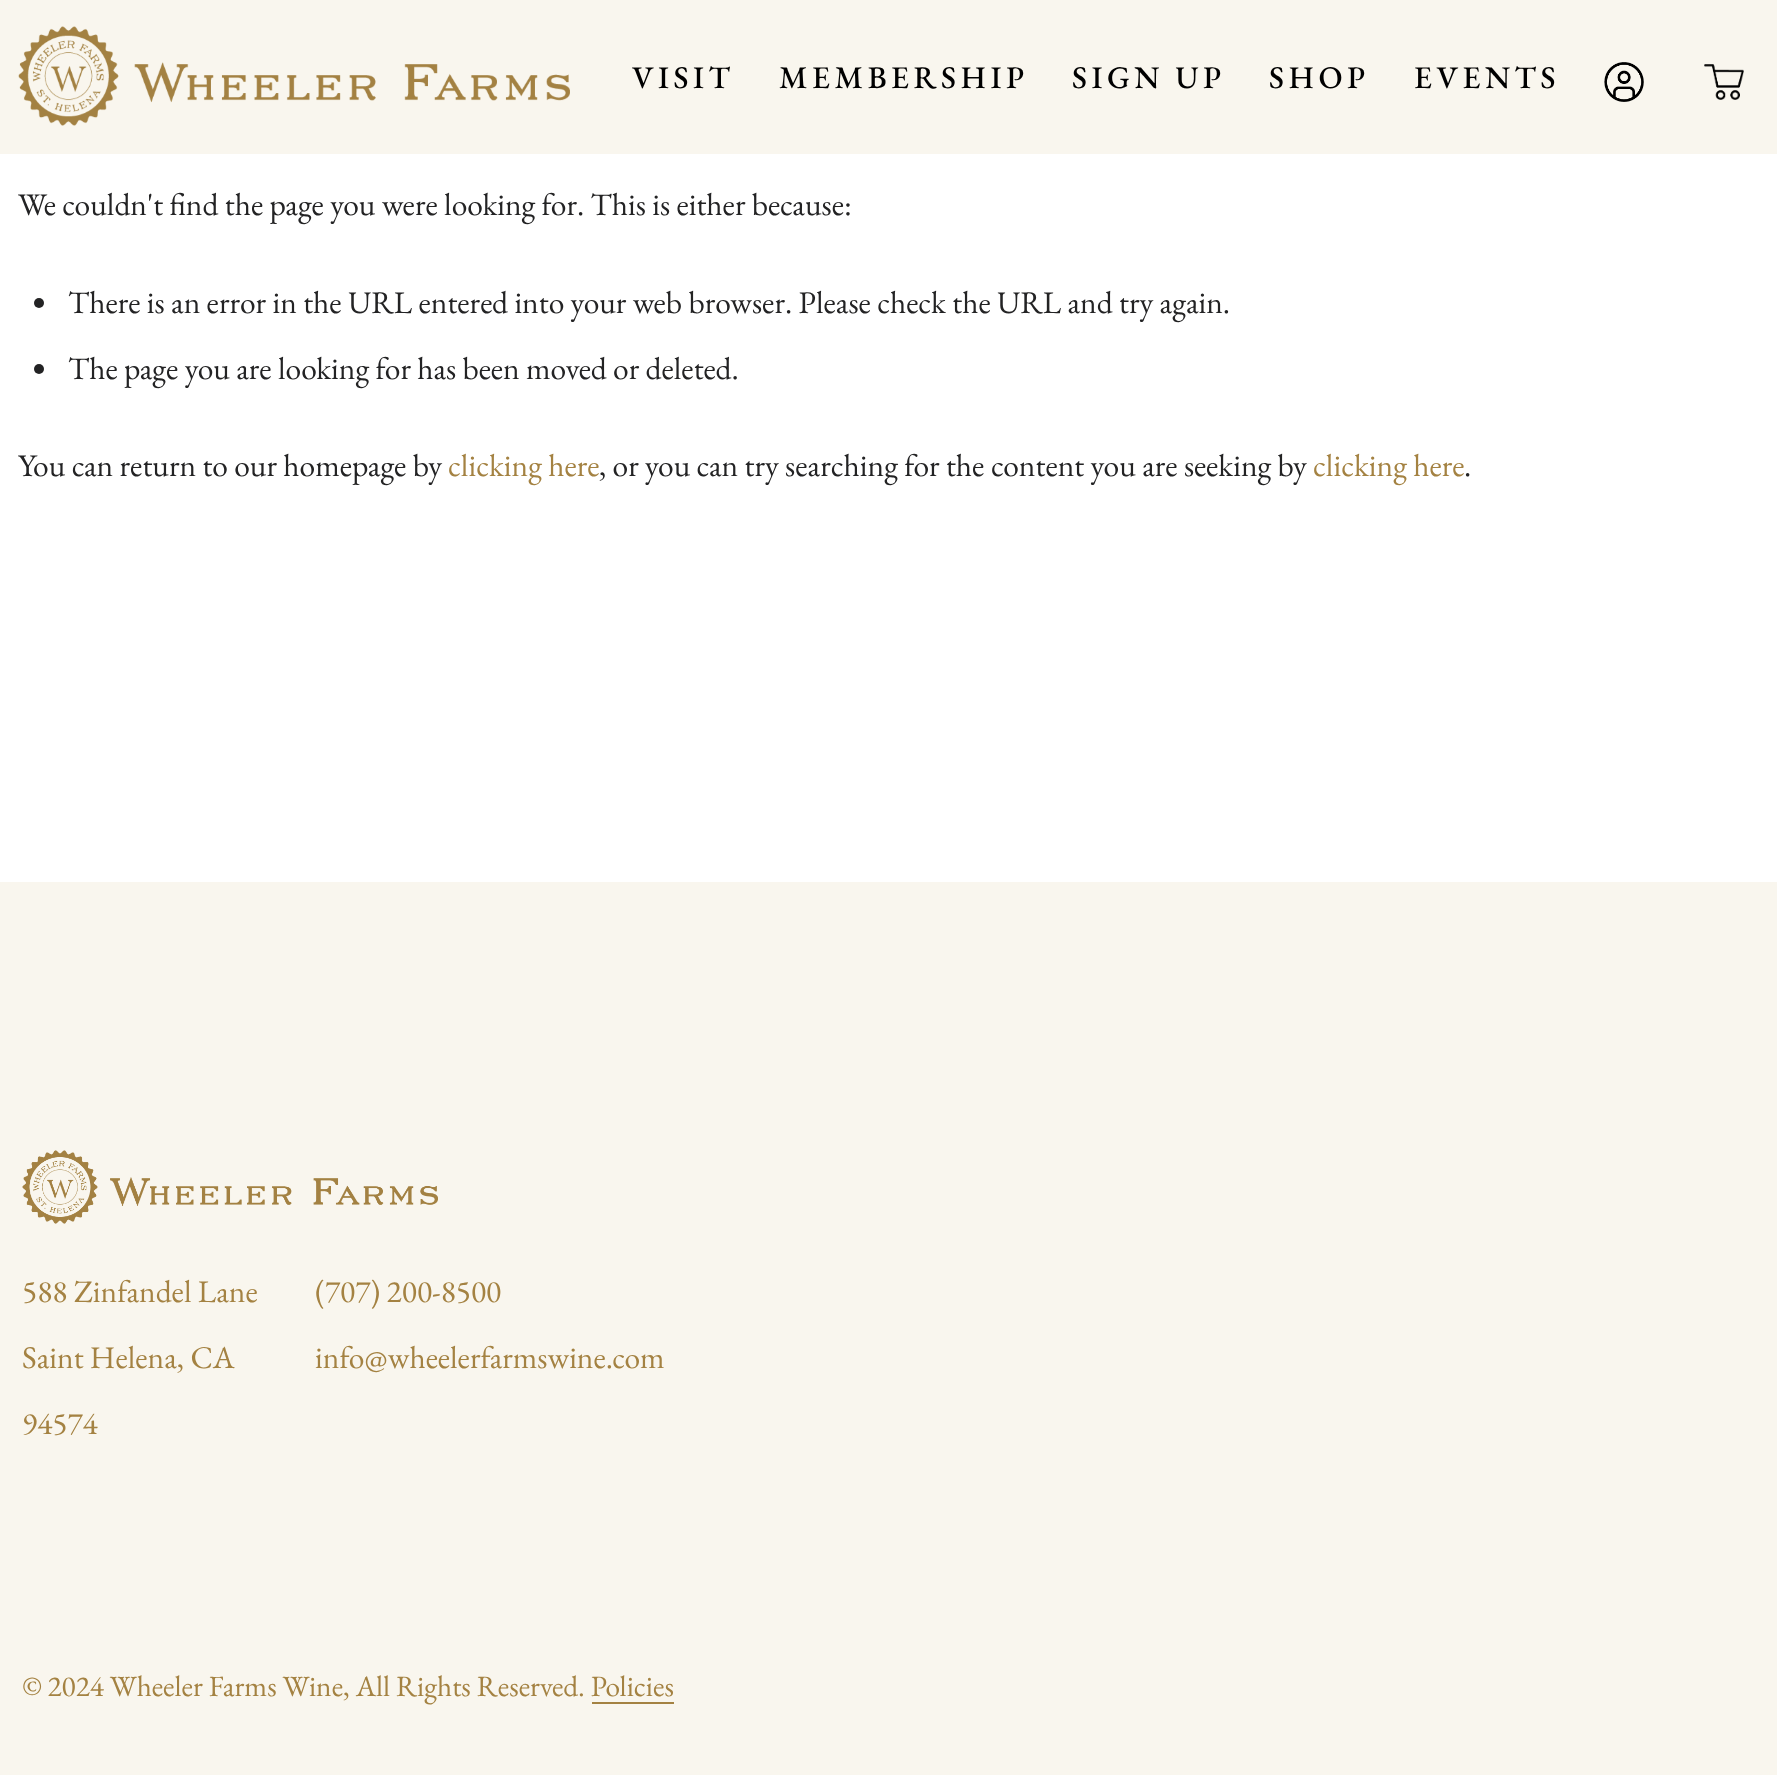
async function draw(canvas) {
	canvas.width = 1777;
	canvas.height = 1775;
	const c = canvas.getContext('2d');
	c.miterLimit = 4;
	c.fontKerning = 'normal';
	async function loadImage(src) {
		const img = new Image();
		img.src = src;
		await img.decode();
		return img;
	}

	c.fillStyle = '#fff';
	c.fillRect(0, 0, 1777, 1775);
	c.fillStyle = '#f9f6ee';
	c.fillRect(0, 0, 1777, 154);
	c.drawImage(await loadImage('img1.png'), 18, 26, 552, 100);
	c.letterSpacing = '4.5px';
	c.font = '500 31.55px EB Garamond';
	c.fillStyle = '#000';
	for (const [text, x, y] of [
		['VISIT', 632, 88],
		['MEMBERSHIP', 779, 88],
		['SIGN UP', 1072, 88],
		['SHOP', 1269, 88],
		['EVENTS', 1414, 88],
	]) {
		c.fillText(text, x, y);
	}
	c.drawImage(await loadImage('img2.png'), 1604, 62, 40, 40);
	c.drawImage(await loadImage('img3.png'), 1704, 64, 40, 36);
	c.letterSpacing = '0px';
	c.font = '31.55px EB Garamond';
	c.fillStyle = '#232324';
	c.fillText('We couldn\'t find the page you were looking for. This is either because:', 18, 215);
	c.beginPath();
	c.arc(39, 303, 5, 0, 2 * Math.PI);
	c.fill();
	c.fillText('There is an error in the URL entered into your web browser. Please check the URL and try again.', 68, 313);
	c.beginPath();
	c.arc(39, 369, 5, 0, 2 * Math.PI);
	c.fill();
	c.fillText('The page you are looking for has been moved or deleted.', 68, 379);
	c.fillText('You can return to our homepage by', 18, 476);
	c.fillStyle = '#a48242';
	c.fillText('clicking here', 448, 476);
	c.fillStyle = '#232324';
	c.fillText(', or you can try searching for the', 599, 476);
	c.fillText('content you are seeking by', 991, 476);
	c.fillStyle = '#a48242';
	c.fillText('clicking here', 1313, 476);
	c.fillStyle = '#232324';
	c.fillText('.', 1464, 476);
	c.fillStyle = '#f9f6ee';
	c.fillRect(0, 882, 1777, 893);
	c.drawImage(await loadImage('img4.png'), 22, 1150, 416, 74);
	c.fillStyle = '#a48242';
	for (const [text, x, y] of [
		['588 Zinfandel Lane', 22, 1302],
		['Saint Helena, CA', 22, 1368],
		['94574', 22, 1434],
		['(707) 200-8500', 315, 1302],
		['info@wheelerfarmswine.com', 315, 1368],
	]) {
		c.fillText(text, x, y);
	}
	c.font = '29.4px EB Garamond';
	c.fillText('© 2024 Wheeler Farms Wine, All Rights Reserved. Policies', 22, 1696);
	c.fillRect(592, 1702, 82, 2);
}

draw(document.querySelector('canvas'));
